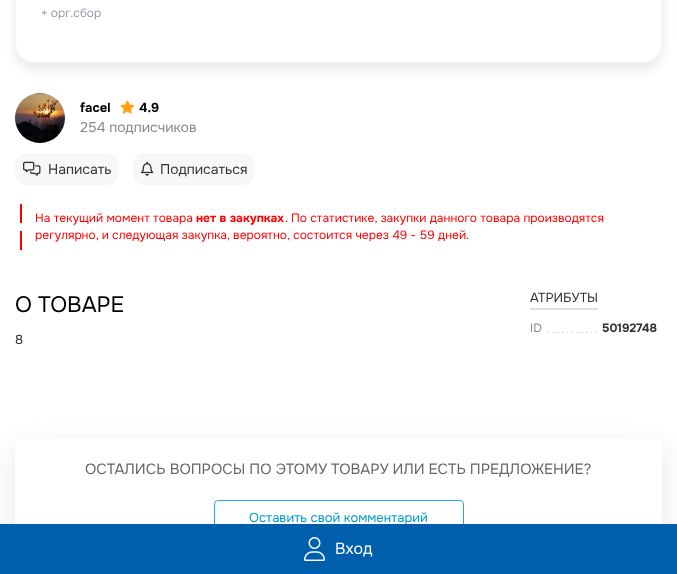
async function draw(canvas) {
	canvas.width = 677;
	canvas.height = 574;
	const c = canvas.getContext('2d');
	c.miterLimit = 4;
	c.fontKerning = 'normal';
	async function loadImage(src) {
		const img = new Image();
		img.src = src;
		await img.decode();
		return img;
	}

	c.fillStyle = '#fff';
	c.fillRect(0, 0, 677, 574);
	c.save();
	c.beginPath();
	c.moveTo(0, 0);
	c.lineTo(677, 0);
	c.lineTo(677, 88);
	c.lineTo(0, 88);
	c.closePath();
	c.moveTo(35, -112);
	c.lineTo(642, -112);
	c.bezierCurveTo(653, -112, 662, -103, 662, -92);
	c.lineTo(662, 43);
	c.bezierCurveTo(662, 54, 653, 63, 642, 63);
	c.lineTo(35, 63);
	c.bezierCurveTo(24, 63, 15, 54, 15, 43);
	c.lineTo(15, -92);
	c.bezierCurveTo(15, -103, 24, -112, 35, -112);
	c.closePath();
	c.clip('evenodd');
	c.fillStyle = '#e5e7e8';
	c.filter = 'blur(6px)';
	c.beginPath();
	c.roundRect(15, -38, 647, 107, 20);
	c.fill();
	c.filter = 'none';
	c.restore();
	c.beginPath();
	c.roundRect(15.5, -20.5, 646, 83, 19.5);
	c.strokeStyle = '#f4f5f6';
	c.stroke();
	c.font = '12px Onest';
	c.fillStyle = '#999ba6';
	c.fillText('+ орг.сбор', 41, 17);
	c.drawImage(await loadImage('img1.png'), 15, 93, 50, 50);
	c.font = 'bold 13px Onest';
	c.fillStyle = '#000';
	c.fillText('facel', 80, 112);
	c.drawImage(await loadImage('img2.png'), 120, 100, 14, 14);
	c.fillText('4.9', 139, 112);
	c.font = '14px Onest';
	c.fillStyle = '#888';
	c.fillText('254 подписчиков', 80, 132);
	c.fillStyle = '#f7f7f7';
	c.beginPath();
	c.roundRect(15, 153, 104, 32, 12);
	c.fill();
	c.drawImage(await loadImage('img3.png'), 23, 161, 18, 15);
	c.fillStyle = '#333';
	c.fillText('Написать', 48, 174);
	c.fillStyle = '#f7f7f7';
	c.beginPath();
	c.roundRect(133, 153, 122, 32, 12);
	c.fill();
	c.drawImage(await loadImage('img4.png'), 141, 161, 13, 15);
	c.fillStyle = '#333';
	c.fillText('Подписаться', 160, 174);
	c.fillStyle = '#f00';
	c.fillRect(20, 204, 2, 19);
	c.font = '12.05px Onest';
	c.fillText('На текущий момент товара', 35, 222);
	c.font = 'bold 12.05px Onest';
	c.fillText('нет в закупках', 196, 222);
	c.font = '12.05px Onest';
	c.fillText('. По статистике, закупки данного товара производятся', 285, 222);
	c.fillRect(20, 231, 2, 19);
	c.fillText('регулярно, и следующая закупка, вероятно, состоится через 49 - 59 дней.', 35, 239);
	c.font = '22.25px Onest';
	c.fillStyle = '#000';
	c.fillText('О ТОВАРЕ', 15, 312);
	c.font = '13px Onest';
	c.fillStyle = '#333';
	c.fillText('8', 15, 344);
	c.fillStyle = '#ddd';
	c.fillRect(530, 308, 68, 2);
	c.fillStyle = '#333';
	c.fillText('АТРИБУТЫ', 530, 302);
	c.font = '12.05px Onest';
	c.fillStyle = '#888';
	c.fillText('ID', 530, 332);
	c.letterSpacing = '2px';
	c.font = '11px Onest';
	c.fillStyle = '#ccc';
	c.fillText('...........', 547, 333);
	c.fillStyle = '#fff';
	c.beginPath();
	c.roundRect(597, 320, 65, 17, 4);
	c.fill();
	c.letterSpacing = '0px';
	c.font = 'bold 12.05px Onest';
	c.fillStyle = '#333';
	c.fillText('50192748', 602, 332);
	c.save();
	c.beginPath();
	c.moveTo(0, 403);
	c.lineTo(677, 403);
	c.lineTo(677, 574);
	c.lineTo(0, 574);
	c.closePath();
	c.moveTo(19, 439);
	c.lineTo(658, 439);
	c.bezierCurveTo(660, 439, 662, 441, 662, 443);
	c.lineTo(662, 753);
	c.bezierCurveTo(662, 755, 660, 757, 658, 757);
	c.lineTo(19, 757);
	c.bezierCurveTo(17, 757, 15, 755, 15, 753);
	c.lineTo(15, 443);
	c.bezierCurveTo(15, 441, 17, 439, 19, 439);
	c.closePath();
	c.clip('evenodd');
	c.fillStyle = '#e6e6e6';
	c.filter = 'blur(15px)';
	c.beginPath();
	c.roundRect(15, 449, 647, 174, 4);
	c.fill();
	c.filter = 'none';
	c.restore();
	c.font = '14.85px Onest';
	c.fillStyle = '#666';
	c.fillText('ОСТАЛИСЬ ВОПРОСЫ ПО ЭТОМУ ТОВАРУ ИЛИ ЕСТЬ ПРЕДЛОЖЕНИЕ?', 85, 474);
	c.beginPath();
	c.roundRect(214.5, 500.5, 249, 36, 3.5);
	c.strokeStyle = '#1fabe6';
	c.stroke();
	c.font = '13px Onest';
	c.fillStyle = '#019cd4';
	c.fillText('Оставить свой комментарий', 249, 522);
	c.fillStyle = '#005fad';
	c.fillRect(0, 524, 677, 50);
	c.drawImage(await loadImage('img5.png'), 304, 537, 21, 24);
	c.font = '16px Onest';
	c.fillStyle = '#fff';
	c.fillText('Вход', 335, 554);
}

draw(document.querySelector('canvas'));
